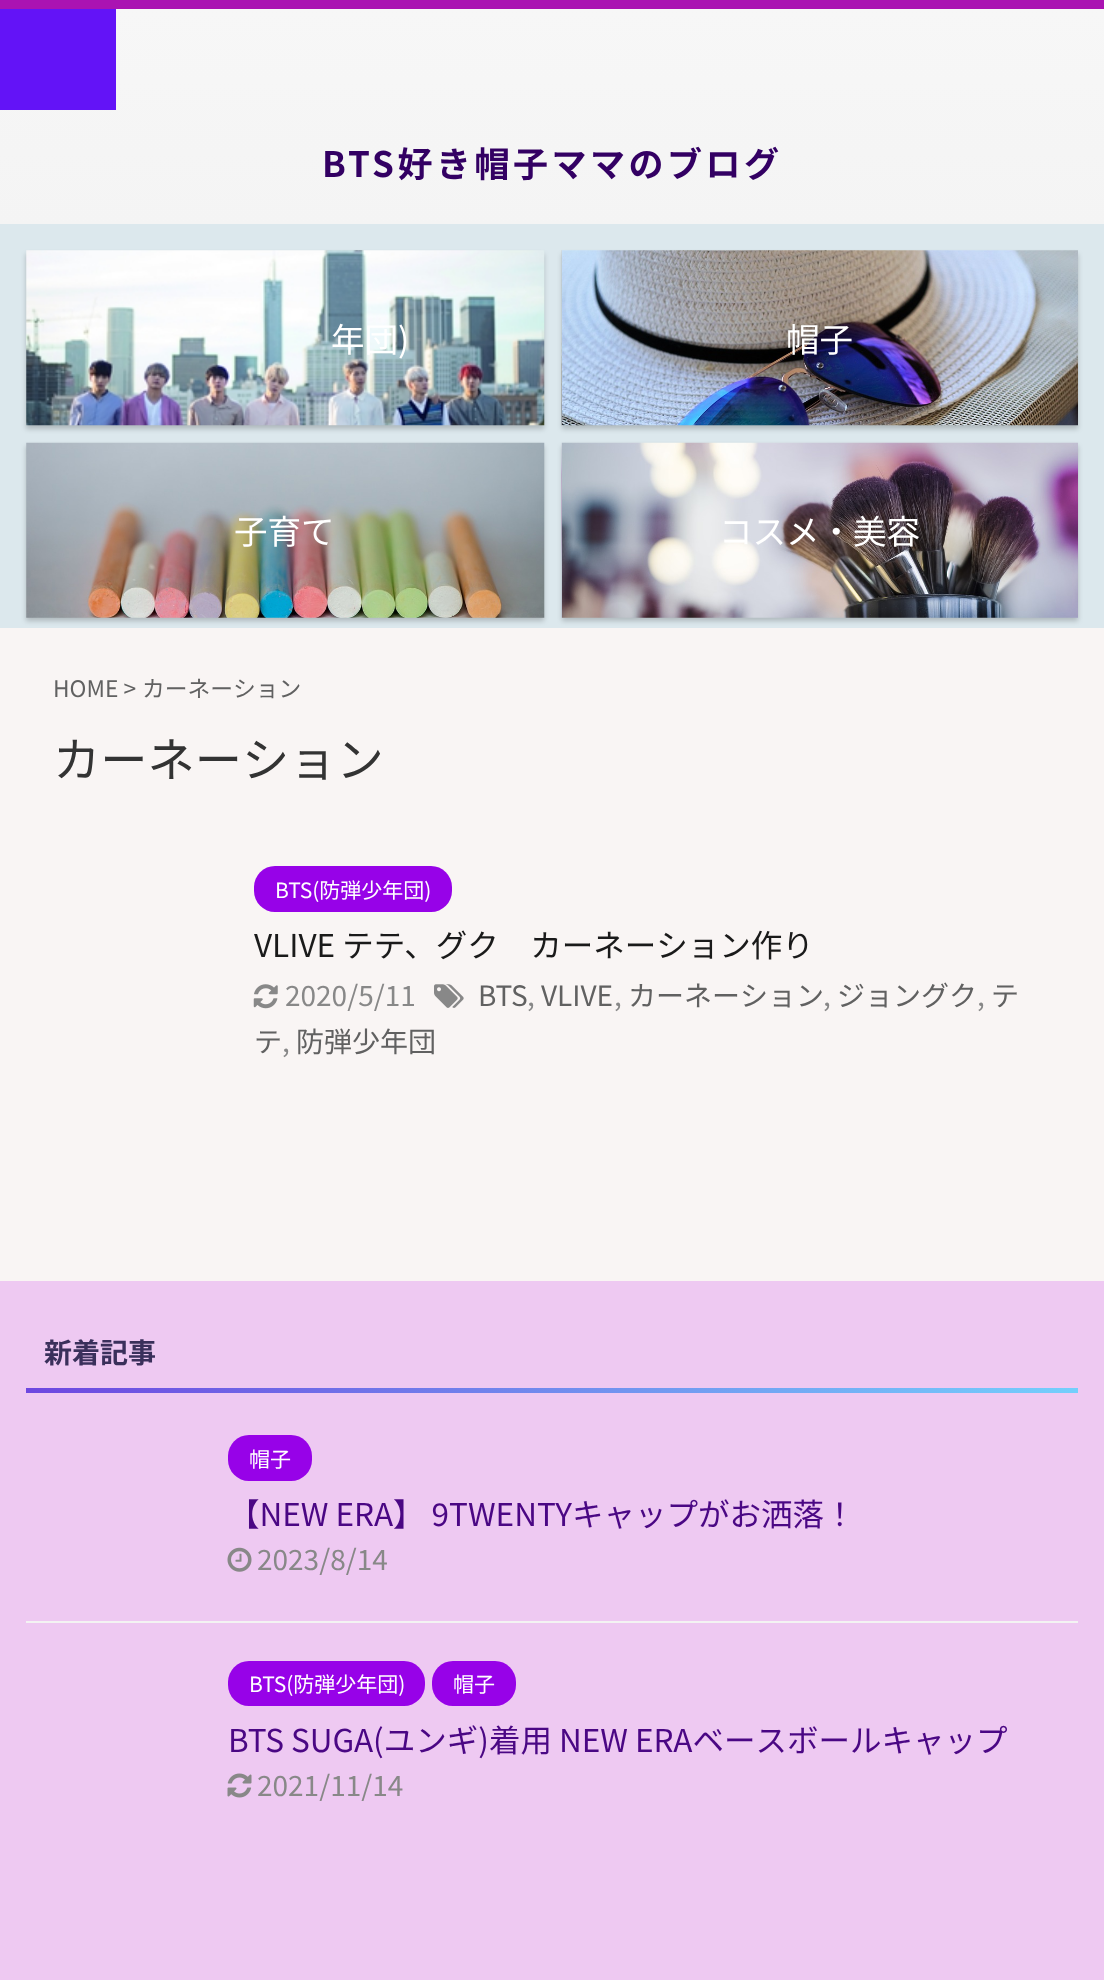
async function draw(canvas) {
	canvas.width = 1104;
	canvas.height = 1980;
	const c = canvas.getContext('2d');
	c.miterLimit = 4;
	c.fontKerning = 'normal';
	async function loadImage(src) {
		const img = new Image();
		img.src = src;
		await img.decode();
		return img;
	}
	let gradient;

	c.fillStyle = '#aa13b2';
	c.fillRect(0, 0, 1104, 1980);
	gradient = c.createLinearGradient(552, 9, 552, 224);
	gradient.addColorStop(0, '#f7f7f7');
	gradient.addColorStop(1, '#f4f4f4');
	c.fillStyle = gradient;
	c.fillRect(0, 9, 1104, 215);
	c.fillStyle = '#6313f7';
	c.fillRect(0, 9, 116, 101);
	c.letterSpacing = '3.5px';
	c.font = 'bold 35px Noto Sans JP';
	c.fillStyle = '#330063';
	c.fillText('BTS好き帽子ママのブログ', 322, 177);
	c.fillStyle = '#dce8ed';
	c.fillRect(0, 224, 1104, 404);
	c.fillStyle = '#00000033';
	c.filter = 'blur(2.5px)';
	c.beginPath();
	c.rect(26, 254, 518, 175);
	c.fill();
	c.filter = 'none';
	c.drawImage(await loadImage('img1.png'), 26, 250, 519, 176);
	c.letterSpacing = '0px';
	c.font = '33.5px Noto Sans JP';
	c.fillStyle = '#fff';
	c.fillText('年団)', 331, 352);
	c.fillStyle = '#00000033';
	c.filter = 'blur(2.5px)';
	c.beginPath();
	c.rect(562, 254, 516, 175);
	c.fill();
	c.filter = 'none';
	c.drawImage(await loadImage('img2.png'), 561, 250, 517, 176);
	c.fillStyle = '#fff';
	c.fillText('帽子', 786, 352);
	c.fillStyle = '#f9f5f4';
	c.fillRect(0, 628, 1104, 653);
	c.fillStyle = '#00000033';
	c.filter = 'blur(2.5px)';
	c.beginPath();
	c.rect(26, 446, 518, 175);
	c.fill();
	c.filter = 'none';
	c.drawImage(await loadImage('img3.png'), 26, 442, 519, 176);
	c.fillStyle = '#fff';
	c.fillText('子育て', 234, 544);
	c.fillStyle = '#00000033';
	c.filter = 'blur(2.5px)';
	c.beginPath();
	c.rect(562, 446, 516, 175);
	c.fill();
	c.filter = 'none';
	c.drawImage(await loadImage('img4.png'), 561, 442, 517, 176);
	c.fillStyle = '#fff';
	c.fillText('コスメ・美容', 719, 544);
	c.fillStyle = '#eec9f2';
	c.fillRect(0, 1281, 1104, 699);
	c.font = '22.75px Noto Sans JP';
	c.fillStyle = '#616161';
	c.fillText('HOME >', 53, 697);
	c.fillText('カーネーション', 142, 697);
	c.font = '47.25px Noto Sans JP';
	c.fillStyle = '#333';
	c.fillText('カーネーション', 53, 777);
	c.fillStyle = '#9702e8';
	c.beginPath();
	c.roundRect(254, 866, 198, 46, 21);
	c.fill();
	c.font = '21px Noto Sans JP';
	c.fillStyle = '#fff';
	c.fillText('BTS(防弾少年団)', 275, 898);
	c.font = '31.5px Noto Sans JP';
	c.fillStyle = '#1a1a1a';
	c.fillText('VLIVE テテ、グク　カーネーション作り', 254, 957);
	c.drawImage(await loadImage('img5.png'), 434, 984, 30, 24);
	c.font = '28px Noto Sans JP';
	c.fillStyle = '#616161';
	c.fillText('BTS', 478, 1006);
	c.fillStyle = '#888';
	c.fillText(',', 527, 1006);
	c.fillStyle = '#616161';
	c.fillText('VLIVE', 541, 1006);
	c.fillStyle = '#888';
	c.fillText(',', 614, 1006);
	c.fillStyle = '#616161';
	c.fillText('カーネーション', 628, 1006);
	c.fillStyle = '#888';
	c.fillText(',', 823, 1006);
	c.fillStyle = '#616161';
	c.fillText('ジョングク', 837, 1006);
	c.fillStyle = '#888';
	c.fillText(',', 977, 1006);
	c.fillStyle = '#616161';
	c.fillText('テ', 991, 1006);
	c.fillText('テ', 254, 1052);
	c.fillStyle = '#888';
	c.fillText(',', 282, 1052);
	c.fillStyle = '#616161';
	c.fillText('防弾少年団', 296, 1052);
	c.drawImage(await loadImage('img6.png'), 253, 984, 25, 25);
	c.fillStyle = '#888';
	c.fillText('2020/5/11', 285, 1006);
	c.font = 'bold 28px Noto Sans JP';
	c.fillStyle = '#3a305b';
	c.fillText('新着記事', 44, 1363);
	gradient = c.createLinearGradient(1078, 1390, 26, 1390);
	gradient.addColorStop(0, '#74cffc');
	gradient.addColorStop(1, '#6d47e0');
	c.fillStyle = gradient;
	c.fillRect(26, 1388, 1052, 5);
	c.fillStyle = '#f3f3f3';
	c.fillRect(26, 1621, 1052, 2);
	c.fillStyle = '#9702e8';
	c.beginPath();
	c.roundRect(228, 1435, 84, 46, 21);
	c.fill();
	c.font = '21px Noto Sans JP';
	c.fillStyle = '#fff';
	c.fillText('帽子', 249, 1467);
	c.font = '31.5px Noto Sans JP';
	c.fillStyle = '#4a0784';
	c.fillText('【NEW ERA】 9TWENTYキャップがお洒落！', 228, 1526);
	c.drawImage(await loadImage('img7.png'), 227, 1547, 25, 25);
	c.font = '28px Noto Sans JP';
	c.fillStyle = '#888';
	c.fillText('2023/8/14', 257, 1570);
	c.fillStyle = '#9702e8';
	c.beginPath();
	c.roundRect(228, 1661, 197, 45, 21);
	c.fill();
	c.font = '21px Noto Sans JP';
	c.fillStyle = '#fff';
	c.fillText('BTS(防弾少年団)', 249, 1692);
	c.fillStyle = '#9702e8';
	c.beginPath();
	c.roundRect(432, 1661, 84, 45, 21);
	c.fill();
	c.fillStyle = '#fff';
	c.fillText('帽子', 453, 1692);
	c.font = '31.5px Noto Sans JP';
	c.fillStyle = '#4a0784';
	c.fillText('BTS SUGA(ユンギ)着用 NEW ERAベースボールキャップ', 228, 1752);
	c.drawImage(await loadImage('img8.png'), 227, 1773, 25, 25);
	c.font = '28px Noto Sans JP';
	c.fillStyle = '#888';
	c.fillText('2021/11/14', 257, 1796);
}

draw(document.querySelector('canvas'));
